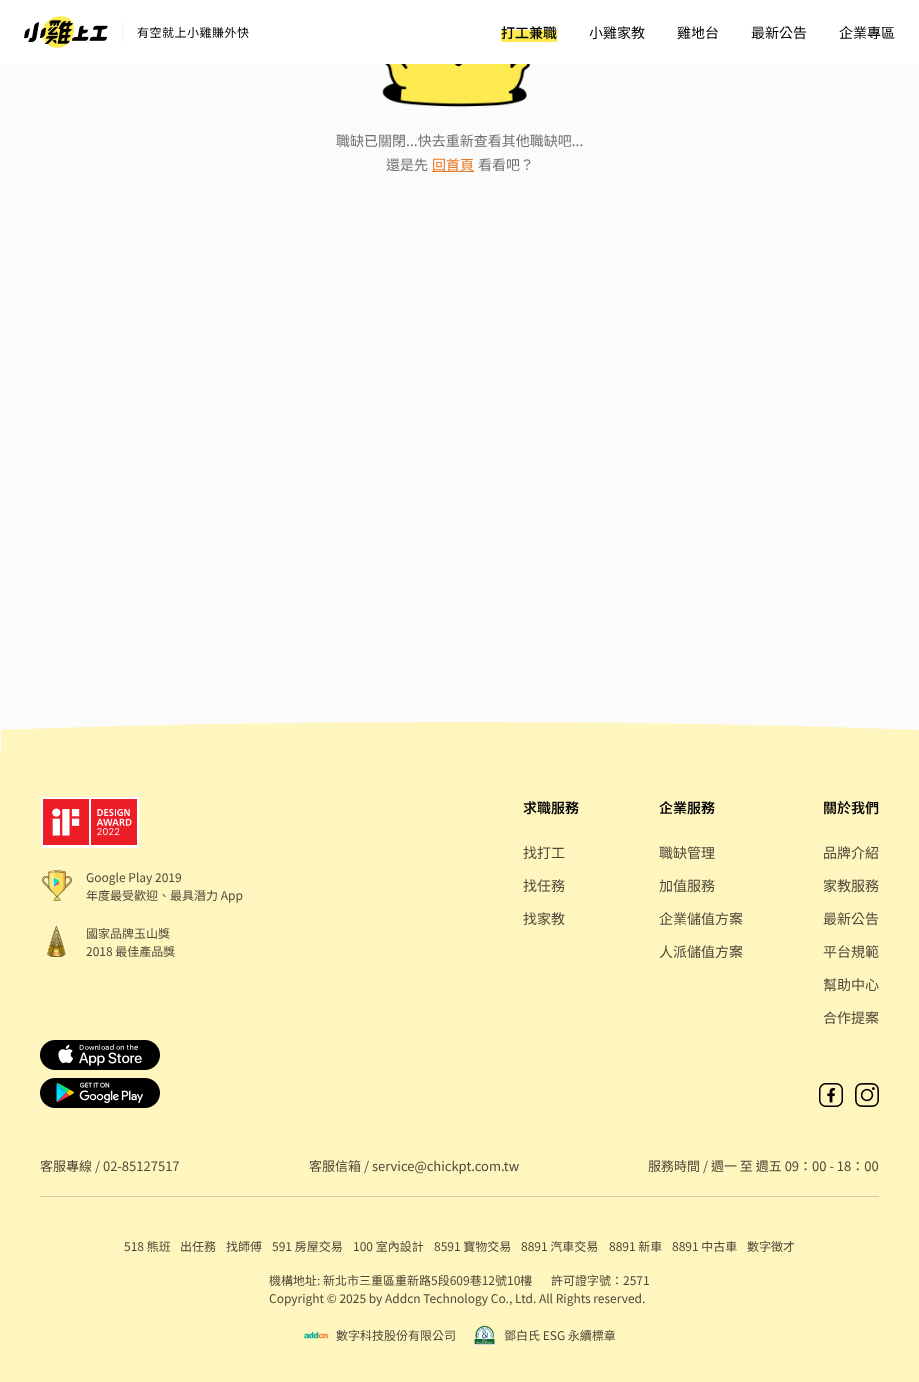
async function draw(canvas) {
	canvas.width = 919;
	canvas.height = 1382;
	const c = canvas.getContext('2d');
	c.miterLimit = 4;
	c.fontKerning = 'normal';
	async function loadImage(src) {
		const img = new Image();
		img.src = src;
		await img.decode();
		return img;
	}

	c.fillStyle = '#fbfbfb';
	c.fillRect(0, 0, 919, 1382);
	c.fillStyle = '#fff';
	c.fillRect(0, 0, 919, 64);
	c.drawImage(await loadImage('img1.png'), 24, 16, 84, 32);
	c.fillStyle = '#f2f2f2';
	c.fillRect(122, 23, 1, 18);
	c.letterSpacing = '0.5px';
	c.font = '12px Noto Sans TC';
	c.fillStyle = '#000';
	c.fillText('有空就上小雞賺外快', 137, 37);
	c.fillStyle = '#ffeb50';
	c.fillRect(501, 30, 56, 12);
	c.letterSpacing = '0px';
	c.font = '500 14px Noto Sans TC';
	c.fillStyle = '#000';
	c.fillText('打工兼職', 501, 38);
	c.font = '14px Noto Sans TC';
	for (const [text, x, y] of [
		['小雞家教', 589, 38],
		['雞地台', 677, 38],
		['最新公告', 751, 38],
		['企業專區', 839, 38],
	]) {
		c.fillText(text, x, y);
	}
	c.drawImage(await loadImage('img2.png'), 382, 64, 149, 43);
	c.fillStyle = '#707070';
	c.fillText('職缺已關閉...快去重新查看其他職缺吧...', 336, 146);
	c.fillText('還是先', 386, 170);
	c.fillStyle = '#eb781e';
	c.fillRect(432, 171, 42, 1);
	c.fillText('回首頁', 432, 170);
	c.fillStyle = '#707070';
	c.fillText('看看吧？', 478, 170);
	c.fillStyle = '#fff5bf';
	c.fillRect(0, 753, 919, 629);
	c.save();
	c.beginPath();
	c.rect(1, 722, 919, 36);
	c.clip();
	c.beginPath();
	c.moveTo(460, 722);
	c.bezierCurveTo(739, 722, 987, 730, 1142, 742);
	c.lineTo(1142, 758);
	c.lineTo(-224, 758);
	c.lineTo(-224, 742);
	c.bezierCurveTo(-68, 730, 180, 722, 460, 722);
	c.closePath();
	c.fill();
	c.restore();
	c.drawImage(await loadImage('img3.png'), 41, 797, 98, 51);
	c.drawImage(await loadImage('img4.png'), 42, 870, 30, 31);
	c.font = '12px Noto Sans TC';
	c.fillStyle = '#4d4a39';
	c.fillText('Google Play 2019', 86, 882);
	c.fillText('年度最受歡迎、最具潛力 App', 86, 900);
	c.drawImage(await loadImage('img5.png'), 47, 926, 19, 31);
	c.fillText('國家品牌玉山獎', 86, 938);
	c.fillText('2018 最佳產品獎', 86, 956);
	c.font = '600 14px Noto Sans TC';
	c.fillStyle = '#000';
	c.fillText('求職服務', 523, 813);
	c.font = '14px Noto Sans TC';
	c.fillStyle = '#4d4a39';
	for (const [text, x, y] of [
		['找打工', 523, 858],
		['找任務', 523, 891],
		['找家教', 523, 924],
	]) {
		c.fillText(text, x, y);
	}
	c.font = '600 14px Noto Sans TC';
	c.fillStyle = '#000';
	c.fillText('企業服務', 659, 813);
	c.font = '14px Noto Sans TC';
	c.fillStyle = '#4d4a39';
	for (const [text, x, y] of [
		['職缺管理', 659, 858],
		['加值服務', 659, 891],
		['企業儲值方案', 659, 924],
		['人派儲值方案', 659, 957],
	]) {
		c.fillText(text, x, y);
	}
	c.font = '600 14px Noto Sans TC';
	c.fillStyle = '#000';
	c.fillText('關於我們', 823, 813);
	c.font = '14px Noto Sans TC';
	c.fillStyle = '#4d4a39';
	for (const [text, x, y] of [
		['品牌介紹', 823, 858],
		['家教服務', 823, 891],
		['最新公告', 823, 924],
		['平台規範', 823, 957],
		['幫助中心', 823, 990],
		['合作提案', 823, 1023],
	]) {
		c.fillText(text, x, y);
	}
	c.drawImage(await loadImage('img6.png'), 40, 1040, 120, 30);
	c.drawImage(await loadImage('img7.png'), 40, 1078, 120, 30);
	c.drawImage(await loadImage('img8.png'), 819, 1083, 24, 24);
	c.drawImage(await loadImage('img9.png'), 855, 1083, 24, 24);
	c.font = '13px Noto Sans TC';
	for (const [text, x, y] of [
		['客服專線 / 02-85127517', 40, 1171],
		['客服信箱 / service@chickpt.com.tw', 309, 1171],
		['服務時間 / 週一 至 週五 09：00 - 18：00', 648, 1171],
	]) {
		c.fillText(text, x, y);
	}
	c.fillStyle = '#d9d0a2';
	c.fillRect(40, 1196, 839, 1);
	c.font = '12px Noto Sans TC';
	c.fillStyle = '#4d4a39';
	for (const [text, x, y] of [
		['518 熊班', 124, 1251],
		['出任務', 180, 1251],
		['找師傅', 226, 1251],
		['591 房屋交易', 272, 1251],
		['100 室內設計', 353, 1251],
		['8591 寶物交易', 434, 1251],
		['8891 汽車交易', 521, 1251],
		['8891 新車', 609, 1251],
		['8891 中古車', 672, 1251],
		['數字徵才', 747, 1251],
		['機構地址: 新北市三重區重新路5段609巷12號10樓', 269, 1285],
		['許可證字號：2571', 551, 1285],
		['Copyright © 2025 by Addcn Technology Co., Ltd. All Rights reserved.', 269, 1303],
	]) {
		c.fillText(text, x, y);
	}
	c.drawImage(await loadImage('img10.png'), 304, 1331, 24, 8);
	c.fillText('數字科技股份有限公司', 336, 1340);
	c.drawImage(await loadImage('img11.png'), 474, 1325, 21, 20);
	c.fillText('鄧白氏 ESG 永續標章', 504, 1340);
}

draw(document.querySelector('canvas'));
